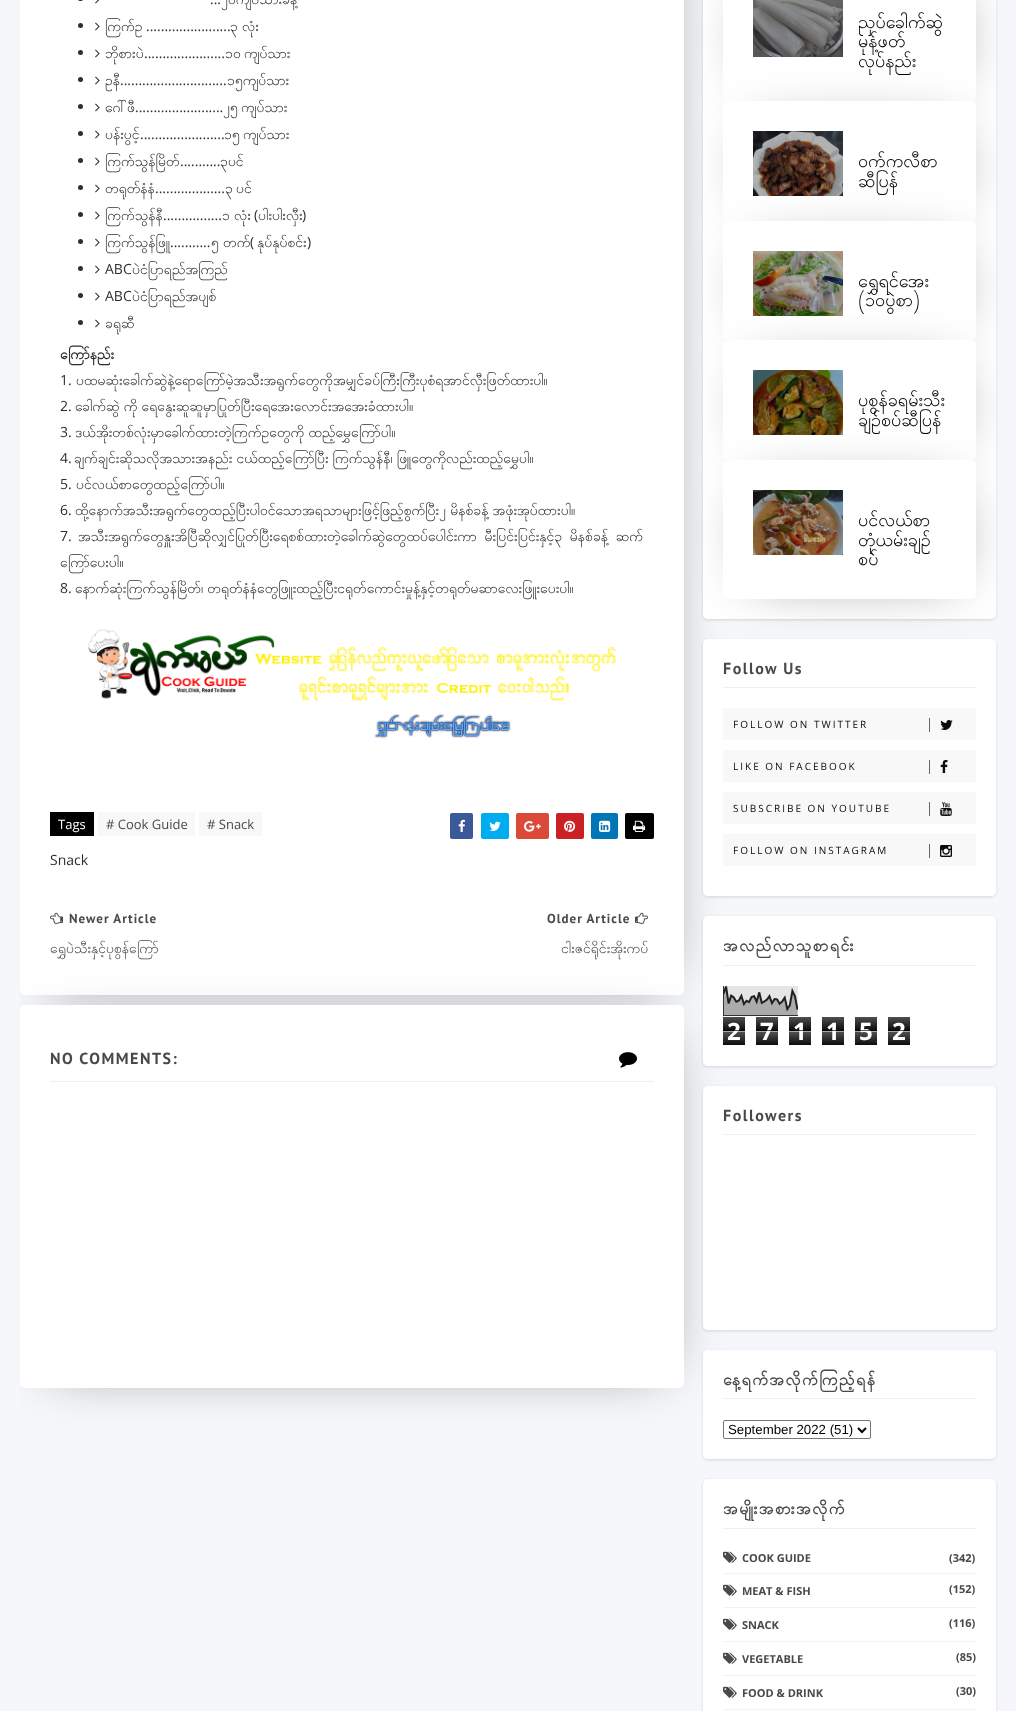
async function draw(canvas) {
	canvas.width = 1016;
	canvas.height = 1711;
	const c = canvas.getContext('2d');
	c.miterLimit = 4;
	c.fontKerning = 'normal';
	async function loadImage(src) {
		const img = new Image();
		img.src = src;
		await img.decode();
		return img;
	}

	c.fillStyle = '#f6f7fb';
	c.fillRect(0, 0, 1016, 1711);
	c.save();
	c.beginPath();
	c.rect(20, 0, 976, 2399);
	c.clip();
	c.fillStyle = '#00000080';
	c.filter = 'blur(27.5px)';
	c.beginPath();
	c.rect(52, -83, 610, 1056);
	c.fill();
	c.filter = 'none';
	c.restore();
	c.fillStyle = '#fff';
	c.beginPath();
	c.roundRect(20, -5, 664, 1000, 5);
	c.fill();
	c.fillStyle = '#2e2e2e';
	c.beginPath();
	c.roundRect(78, -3, 5, 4, 2.5);
	c.fill();
	c.drawImage(await loadImage('img1.png'), 95, 0, 5, 4);
	c.font = '14px Open Sans';
	c.fillText('...', 210, 4);
	c.font = '14px Padauk';
	c.fillText('၂၀ကျပ်သားခန့်', 221, 4);
	c.beginPath();
	c.arc(80.5, 25.5, 2.5, 0, 2 * Math.PI);
	c.fill();
	c.drawImage(await loadImage('img2.png'), 95, 22, 5, 9);
	c.fillText('ကြက်ဥ', 105, 31);
	c.wordSpacing = '-1px';
	c.fillText('၃ လုံး', 230, 31);
	c.wordSpacing = '0px';
	c.font = '14px Open Sans';
	c.fillText('.......................', 146, 31);
	c.beginPath();
	c.arc(80.5, 52.5, 2.5, 0, 2 * Math.PI);
	c.fill();
	c.drawImage(await loadImage('img2.png'), 95, 49, 5, 9);
	c.font = '14px Padauk';
	c.fillText('ဘိုစားပဲ', 105, 58);
	c.wordSpacing = '-2px';
	c.fillText('၁၀ ကျပ်သား', 225, 58);
	c.wordSpacing = '0px';
	c.font = '14px Open Sans';
	c.fillText('......................', 144, 58);
	c.beginPath();
	c.arc(80.5, 79.5, 2.5, 0, 2 * Math.PI);
	c.fill();
	c.drawImage(await loadImage('img2.png'), 95, 76, 5, 9);
	c.font = '14px Padauk';
	c.fillText('ဥနီ', 105, 85);
	c.fillText('၁၅ကျပ်သား', 227, 85);
	c.font = '14px Open Sans';
	c.fillText('.............................', 120, 85);
	c.beginPath();
	c.arc(80.5, 106.5, 2.5, 0, 2 * Math.PI);
	c.fill();
	c.drawImage(await loadImage('img2.png'), 95, 103, 5, 9);
	c.font = '14px Padauk';
	c.fillText('ဂေါ်ဖီ', 105, 112);
	c.wordSpacing = '-2px';
	c.fillText('၂၅ ကျပ်သား', 223, 112);
	c.wordSpacing = '0px';
	c.font = '14px Open Sans';
	c.fillText('........................', 135, 112);
	c.beginPath();
	c.arc(80.5, 133.5, 2.5, 0, 2 * Math.PI);
	c.fill();
	c.drawImage(await loadImage('img2.png'), 95, 130, 5, 9);
	c.font = '14px Padauk';
	c.fillText('ပန်းပွင့်', 105, 139);
	c.wordSpacing = '-2px';
	c.fillText('၁၅ ကျပ်သား', 224, 139);
	c.wordSpacing = '0px';
	c.font = '14px Open Sans';
	c.fillText('.......................', 140, 139);
	c.beginPath();
	c.arc(80.5, 160.5, 2.5, 0, 2 * Math.PI);
	c.fill();
	c.drawImage(await loadImage('img2.png'), 95, 157, 5, 9);
	c.font = '14px Padauk';
	c.fillText('ကြက်သွန်မြိတ်', 105, 166);
	c.fillText('၃ပင်', 220, 166);
	c.font = '14px Open Sans';
	c.fillText('...........', 180, 166);
	c.beginPath();
	c.arc(80.5, 187.5, 2.5, 0, 2 * Math.PI);
	c.fill();
	c.drawImage(await loadImage('img2.png'), 95, 184, 5, 9);
	c.font = '14px Padauk';
	c.fillText('တရုတ်နံနံ', 105, 193);
	c.wordSpacing = '-2px';
	c.fillText('၃ ပင်', 225, 193);
	c.wordSpacing = '0px';
	c.font = '14px Open Sans';
	c.fillText('...................', 155, 193);
	c.font = '14px Padauk';
	c.fillText('ကြက်သွန်နီ', 105, 220);
	c.wordSpacing = '-1px';
	c.fillText('၁ လုံး', 222, 220);
	c.wordSpacing = '0px';
	c.font = '14px Open Sans';
	c.fillText('(', 254, 220);
	c.font = '14px Padauk';
	c.fillText('ပါးပါးလှီး', 258, 220);
	c.beginPath();
	c.arc(80.5, 214.5, 2.5, 0, 2 * Math.PI);
	c.fill();
	c.drawImage(await loadImage('img2.png'), 95, 211, 5, 9);
	c.font = '14px Open Sans';
	c.fillText(')', 302, 220);
	c.fillText('................', 163, 220);
	c.beginPath();
	c.arc(80.5, 241.5, 2.5, 0, 2 * Math.PI);
	c.fill();
	c.drawImage(await loadImage('img2.png'), 95, 238, 5, 9);
	c.font = '14px Padauk';
	c.fillText('ကြက်သွန်ဖြူ', 105, 247);
	c.wordSpacing = '-1px';
	c.fillText('၅ တက်', 211, 247);
	c.wordSpacing = '0px';
	c.font = '14px Open Sans';
	c.fillText('(', 250, 247);
	c.font = '14px Padauk';
	c.fillText('နုပ်နုပ်စင်း', 257, 247);
	c.font = '14px Open Sans';
	c.fillText(')', 307, 247);
	c.fillText('...........', 170, 247);
	c.beginPath();
	c.arc(80.5, 268.5, 2.5, 0, 2 * Math.PI);
	c.fill();
	c.drawImage(await loadImage('img2.png'), 95, 265, 5, 9);
	c.fillText('ABC', 105, 274);
	c.font = '14px Padauk';
	c.fillText('ပဲငံပြာရည်အကြည်', 132, 274);
	c.beginPath();
	c.arc(80.5, 295.5, 2.5, 0, 2 * Math.PI);
	c.fill();
	c.drawImage(await loadImage('img2.png'), 95, 292, 5, 9);
	c.font = '14px Open Sans';
	c.fillText('ABC', 105, 301);
	c.font = '14px Padauk';
	c.fillText('ပဲငံပြာရည်အပျစ်', 132, 301);
	c.beginPath();
	c.arc(80.5, 322.5, 2.5, 0, 2 * Math.PI);
	c.fill();
	c.drawImage(await loadImage('img2.png'), 95, 319, 5, 9);
	c.fillText('ခရုဆီ', 105, 328);
	c.font = 'bold 14px Padauk';
	c.fillText('ကြော်နည်း', 60, 359);
	c.font = '14px Open Sans';
	c.fillText('1.', 60, 385);
	c.font = '14px Padauk';
	c.fillText('ပထမဆုံးခေါက်ဆွဲနဲ့ရောကြော်မဲ့အသီးအရွက်တွေကိုအမျှင်ခပ်ကြီးကြီးပုစံရအာင်လှီးဖြတ်ထားပါ။', 76, 385);
	c.font = '14px Open Sans';
	c.fillText('2.', 60, 411);
	c.wordSpacing = '-1px';
	c.font = '14px Padauk';
	c.fillText('ခေါက်ဆွဲ ကို ရေနွေးဆူဆူမှာပြုတ်ပြီးရေအေးလောင်းအအေးခံထားပါ။', 75, 411);
	c.wordSpacing = '0px';
	c.font = '14px Open Sans';
	c.fillText('3.', 60, 437);
	c.wordSpacing = '-1px';
	c.font = '14px Padauk';
	c.fillText('ဒယ်အိုးတစ်လုံးမှာခေါက်ထားတဲ့ကြက်ဥတွေကို ထည့်မွှေကြော်ပါ။', 75, 437);
	c.wordSpacing = '0px';
	c.font = '14px Open Sans';
	c.fillText('4.', 60, 463);
	c.wordSpacing = '-1px';
	c.font = '14px Padauk';
	c.fillText('ချက်ချင်းဆိုသလိုအသားအနည်း ငယ်ထည့်ကြော်ပြီး ကြက်သွန်နီ၊ ဖြူတွေကိုလည်းထည့်မွှေပါ။', 74, 463);
	c.wordSpacing = '0px';
	c.font = '14px Open Sans';
	c.fillText('5.', 60, 489);
	c.font = '14px Padauk';
	c.fillText('ပင်လယ်စာတွေထည့်ကြော်ပါ။', 76, 489);
	c.font = '14px Open Sans';
	c.fillText('6.', 60, 515);
	c.wordSpacing = '-1px';
	c.font = '14px Padauk';
	c.fillText('ထို့နောက်အသီးအရွက်တွေထည့်ပြီးပါ၀င်သောအရသာများဖြင့်ဖြည့်စွက်ပြီး၂ မိနစ်ခန့် အဖုံးအုပ်ထားပါ။', 75, 515);
	c.wordSpacing = '0px';
	c.font = '14px Open Sans';
	c.fillText('7.', 60, 541);
	c.wordSpacing = '2.5px';
	c.font = '14px Padauk';
	c.fillText('အသီးအရွက်တွေနှူးအိပြီဆိုလျှင်ပြုတ်ပြီးရေစစ်ထားတဲ့ခေါက်ဆွဲတွေထပ်ပေါင်းကာ မီးပြင်းပြင်းနှင့်၃ မိနစ်ခန့် ဆက်', 78, 541);
	c.wordSpacing = '0px';
	c.fillText('ကြော်ပေးပါ။', 60, 567);
	c.font = '14px Open Sans';
	c.fillText('8.', 60, 593);
	c.wordSpacing = '-1px';
	c.font = '14px Padauk';
	c.fillText('နောက်ဆုံးကြက်သွန်မြိတ်၊ တရုတ်နံနံတွေဖြူးထည့်ပြီးငရုတ်ကောင်းမှုန့်နှင့်တရုတ်မဆာလေးဖြူးပေးပါ။', 75, 593);
	c.drawImage(await loadImage('img3.png'), 88, 629, 528, 110);
	c.fillStyle = '#000';
	c.fillRect(50, 812, 44, 24);
	c.wordSpacing = '0px';
	c.font = '13px Open Sans';
	c.fillStyle = '#fff';
	c.fillText('Tags', 58, 829);
	c.fillStyle = '#f8f8f8';
	c.fillRect(98, 812, 97, 24);
	c.fillStyle = '#48494d';
	c.fillText('# Cook Guide', 106, 829);
	c.fillStyle = '#f8f8f8';
	c.fillRect(199, 812, 63, 24);
	c.fillStyle = '#48494d';
	c.fillText('# Snack', 207, 829);
	c.fillStyle = '#3b5998';
	c.beginPath();
	c.roundRect(450, 813, 23, 26, 2);
	c.fill();
	c.drawImage(await loadImage('img4.png'), 458, 819, 7, 13);
	c.fillStyle = '#00acee';
	c.beginPath();
	c.roundRect(481, 813, 28, 26, 2);
	c.fill();
	c.drawImage(await loadImage('img5.png'), 489, 821, 12, 10);
	c.fillStyle = '#db4a39';
	c.beginPath();
	c.roundRect(516, 813, 33, 26, 2);
	c.fill();
	c.drawImage(await loadImage('img6.png'), 524, 821, 17, 11);
	c.fillStyle = '#ca2127';
	c.beginPath();
	c.roundRect(556, 813, 28, 26, 2);
	c.fill();
	c.drawImage(await loadImage('img7.png'), 564, 820, 12, 12);
	c.fillStyle = '#0077b5';
	c.beginPath();
	c.roundRect(591, 813, 27, 26, 2);
	c.fill();
	c.drawImage(await loadImage('img8.png'), 599, 820, 12, 12);
	c.fillStyle = '#010101';
	c.beginPath();
	c.roundRect(625, 813, 29, 26, 2);
	c.fill();
	c.drawImage(await loadImage('img9.png'), 633, 820, 13, 12);
	c.font = '14px Open Sans';
	c.fillStyle = '#2e2e2e';
	c.fillText('Snack', 50, 865);
	c.drawImage(await loadImage('img10.png'), 50, 912, 13, 12);
	c.letterSpacing = '1px';
	c.font = 'bold 13px PT Sans';
	c.fillStyle = '#48494d';
	c.fillText('Newer Article', 69, 923);
	c.save();
	c.beginPath();
	c.rect(50, 907, 297, 53);
	c.clip();
	c.letterSpacing = '0px';
	c.font = '14px Padauk';
	c.fillText('ရွှေပဲသီးနှင့်ပုစွန်ကြော်', 50, 953);
	c.restore();
	c.fillText('Older Article', 547, 923);
	c.drawImage(await loadImage('img11.png'), 635, 912, 13, 12);
	c.letterSpacing = '0px';
	c.font = '14px Padauk';
	c.fillText('ငါးဇင်ရိုင်းအိုးကပ်', 561, 953);
	c.save();
	c.beginPath();
	c.rect(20, 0, 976, 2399);
	c.clip();
	c.fillStyle = '#00000080';
	c.filter = 'blur(27.5px)';
	c.beginPath();
	c.rect(52, 1037, 610, 329);
	c.fill();
	c.filter = 'none';
	c.restore();
	c.fillStyle = '#fff';
	c.beginPath();
	c.roundRect(20, 1005, 664, 383, 5);
	c.fill();
	c.fillStyle = '#efefef';
	c.fillRect(50, 1081, 604, 1);
	c.letterSpacing = '1.5px';
	c.font = 'bold 16px PT Sans';
	c.fillStyle = '#48494d';
	c.fillText('NO COMMENTS:', 50, 1064);
	c.drawImage(await loadImage('img12.png'), 619, 1052, 18, 16);
	c.save();
	c.beginPath();
	c.moveTo(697, 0);
	c.lineTo(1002, 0);
	c.lineTo(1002, 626);
	c.lineTo(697, 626);
	c.closePath();
	c.moveTo(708, -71);
	c.lineTo(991, -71);
	c.bezierCurveTo(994, -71, 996, -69, 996, -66);
	c.lineTo(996, 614);
	c.bezierCurveTo(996, 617, 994, 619, 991, 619);
	c.lineTo(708, 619);
	c.bezierCurveTo(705, 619, 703, 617, 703, 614);
	c.lineTo(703, -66);
	c.bezierCurveTo(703, -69, 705, -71, 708, -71);
	c.closePath();
	c.clip('evenodd');
	c.fillStyle = '#00000021';
	c.filter = 'blur(1.5px)';
	c.beginPath();
	c.roundRect(703, -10, 293, 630, 5);
	c.fill();
	c.filter = 'none';
	c.restore();
	c.fillStyle = '#fff';
	c.beginPath();
	c.roundRect(703, -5, 293, 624, 5);
	c.fill();
	c.save();
	c.beginPath();
	c.rect(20, 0, 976, 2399);
	c.clip();
	c.fillStyle = '#00000080';
	c.filter = 'blur(27.5px)';
	c.beginPath();
	c.rect(755, -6, 199, 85);
	c.fill();
	c.filter = 'none';
	c.restore();
	c.beginPath();
	c.roundRect(723, -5, 253, 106, 5);
	c.fill();
	c.drawImage(await loadImage('img13.png'), 753, 0, 90, 57);
	c.letterSpacing = '0px';
	c.font = '18px Padauk';
	c.fillStyle = '#000';
	for (const [text, x, y] of [
		['ညှပ်ခေါက်ဆွဲ', 858, 28],
		['မုန့်ဖတ်', 858, 47],
		['လုပ်နည်း', 858, 67],
	]) {
		c.fillText(text, x, y);
	}
	c.save();
	c.beginPath();
	c.rect(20, 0, 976, 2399);
	c.clip();
	c.fillStyle = '#00000080';
	c.filter = 'blur(27.5px)';
	c.beginPath();
	c.rect(755, 133, 199, 66);
	c.fill();
	c.filter = 'none';
	c.restore();
	c.fillStyle = '#fff';
	c.beginPath();
	c.roundRect(723, 101, 253, 120, 5);
	c.fill();
	c.drawImage(await loadImage('img14.png'), 753, 131, 90, 65);
	c.fillStyle = '#000';
	c.fillText('ဝက်ကလီစာ', 858, 167);
	c.fillText('ဆီပြန်', 858, 187);
	c.save();
	c.beginPath();
	c.rect(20, 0, 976, 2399);
	c.clip();
	c.fillStyle = '#00000080';
	c.filter = 'blur(27.5px)';
	c.beginPath();
	c.rect(755, 253, 199, 65);
	c.fill();
	c.filter = 'none';
	c.restore();
	c.fillStyle = '#fff';
	c.beginPath();
	c.roundRect(723, 221, 253, 119, 5);
	c.fill();
	c.drawImage(await loadImage('img15.png'), 753, 251, 90, 65);
	c.fillStyle = '#000';
	c.fillText('ရွှေရင်အေး', 858, 287);
	c.fillText('(၁၀ပွဲစာ)', 858, 306);
	c.save();
	c.beginPath();
	c.rect(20, 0, 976, 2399);
	c.clip();
	c.fillStyle = '#00000080';
	c.filter = 'blur(27.5px)';
	c.beginPath();
	c.rect(755, 372, 199, 66);
	c.fill();
	c.filter = 'none';
	c.restore();
	c.fillStyle = '#fff';
	c.beginPath();
	c.roundRect(723, 340, 253, 120, 5);
	c.fill();
	c.drawImage(await loadImage('img16.png'), 753, 370, 90, 65);
	c.fillStyle = '#000';
	c.fillText('ပုစွန်ခရမ်းသီး', 858, 406);
	c.fillText('ချဉ်စပ်ဆီပြန်', 858, 426);
	c.save();
	c.beginPath();
	c.rect(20, 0, 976, 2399);
	c.clip();
	c.fillStyle = '#00000080';
	c.filter = 'blur(27.5px)';
	c.beginPath();
	c.rect(755, 492, 199, 85);
	c.fill();
	c.filter = 'none';
	c.restore();
	c.fillStyle = '#fff';
	c.beginPath();
	c.roundRect(723, 460, 253, 139, 5);
	c.fill();
	c.drawImage(await loadImage('img17.png'), 753, 490, 90, 65);
	c.fillStyle = '#000';
	for (const [text, x, y] of [
		['ပင်လယ်စာ', 858, 526],
		['တုံယမ်းချဥ်', 858, 546],
		['စပ်', 858, 565],
	]) {
		c.fillText(text, x, y);
	}
	c.save();
	c.beginPath();
	c.moveTo(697, 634);
	c.lineTo(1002, 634);
	c.lineTo(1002, 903);
	c.lineTo(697, 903);
	c.closePath();
	c.moveTo(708, 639);
	c.lineTo(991, 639);
	c.bezierCurveTo(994, 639, 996, 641, 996, 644);
	c.lineTo(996, 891);
	c.bezierCurveTo(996, 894, 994, 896, 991, 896);
	c.lineTo(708, 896);
	c.bezierCurveTo(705, 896, 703, 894, 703, 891);
	c.lineTo(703, 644);
	c.bezierCurveTo(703, 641, 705, 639, 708, 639);
	c.closePath();
	c.clip('evenodd');
	c.fillStyle = '#00000021';
	c.filter = 'blur(1.5px)';
	c.beginPath();
	c.roundRect(703, 640, 293, 257, 5);
	c.fill();
	c.filter = 'none';
	c.restore();
	c.fillStyle = '#fff';
	c.beginPath();
	c.roundRect(703, 639, 293, 257, 5);
	c.fill();
	c.fillStyle = '#efefef';
	c.fillRect(723, 687, 253, 1);
	c.letterSpacing = '1.5px';
	c.font = 'bold 16px PT Sans';
	c.fillStyle = '#48494d';
	c.fillText('Follow Us', 723, 674);
	c.fillStyle = '#f8f8f8';
	c.fillRect(723, 708, 253, 32);
	c.letterSpacing = '2px';
	c.font = '10px Open Sans';
	c.fillStyle = '#0a0a0a';
	c.fillText('FOLLOW ON TWITTER', 733, 728);
	c.fillStyle = '#666';
	c.fillRect(929, 718, 1, 14);
	c.drawImage(await loadImage('img18.png'), 940, 720, 13, 10);
	c.fillStyle = '#f8f8f8';
	c.fillRect(723, 750, 253, 32);
	c.fillStyle = '#0a0a0a';
	c.fillText('LIKE ON FACEBOOK', 733, 770);
	c.fillStyle = '#666';
	c.fillRect(929, 760, 1, 14);
	c.drawImage(await loadImage('img19.png'), 940, 760, 8, 13);
	c.fillStyle = '#f8f8f8';
	c.fillRect(723, 792, 253, 32);
	c.fillStyle = '#0a0a0a';
	c.fillText('SUBSCRIBE ON YOUTUBE', 733, 812);
	c.fillStyle = '#666';
	c.fillRect(929, 802, 1, 14);
	c.drawImage(await loadImage('img20.png'), 940, 802, 12, 14);
	c.fillStyle = '#f8f8f8';
	c.fillRect(723, 834, 253, 32);
	c.fillStyle = '#0a0a0a';
	c.fillText('FOLLOW ON INSTAGRAM', 733, 854);
	c.fillStyle = '#666';
	c.fillRect(929, 844, 1, 14);
	c.drawImage(await loadImage('img21.png'), 940, 845, 12, 12);
	c.save();
	c.beginPath();
	c.moveTo(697, 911);
	c.lineTo(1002, 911);
	c.lineTo(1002, 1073);
	c.lineTo(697, 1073);
	c.closePath();
	c.moveTo(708, 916);
	c.lineTo(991, 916);
	c.bezierCurveTo(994, 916, 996, 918, 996, 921);
	c.lineTo(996, 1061);
	c.bezierCurveTo(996, 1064, 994, 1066, 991, 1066);
	c.lineTo(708, 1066);
	c.bezierCurveTo(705, 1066, 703, 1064, 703, 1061);
	c.lineTo(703, 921);
	c.bezierCurveTo(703, 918, 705, 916, 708, 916);
	c.closePath();
	c.clip('evenodd');
	c.fillStyle = '#00000021';
	c.filter = 'blur(1.5px)';
	c.beginPath();
	c.roundRect(703, 917, 293, 150, 5);
	c.fill();
	c.filter = 'none';
	c.restore();
	c.fillStyle = '#fff';
	c.beginPath();
	c.roundRect(703, 916, 293, 150, 5);
	c.fill();
	c.fillStyle = '#efefef';
	c.fillRect(723, 965, 253, 1);
	c.letterSpacing = '1.5px';
	c.font = 'bold 16px Padauk';
	c.fillStyle = '#48494d';
	c.fillText('အလည်လာသူစာရင်း', 723, 951);
	c.drawImage(await loadImage('img22.png'), 723, 986, 75, 30);
	c.drawImage(await loadImage('img23.png'), 723, 1017, 22, 28);
	c.letterSpacing = '0px';
	c.font = 'bold 24px Open Sans';
	c.fillStyle = '#fff';
	c.fillText('2', 727, 1040);
	c.fillStyle = '#000000a6';
	c.fillRect(723, 1030, 22, 1);
	c.fillStyle = '#ffffffa6';
	c.fillRect(723, 1031, 22, 1);
	c.drawImage(await loadImage('img23.png'), 756, 1017, 22, 28);
	c.fillStyle = '#fff';
	c.fillText('7', 760, 1040);
	c.fillStyle = '#000000a6';
	c.fillRect(756, 1030, 22, 1);
	c.fillStyle = '#ffffffa6';
	c.fillRect(756, 1031, 22, 1);
	c.drawImage(await loadImage('img23.png'), 789, 1017, 22, 28);
	c.fillStyle = '#fff';
	c.fillText('1', 793, 1040);
	c.fillStyle = '#000000a6';
	c.fillRect(789, 1030, 22, 1);
	c.fillStyle = '#ffffffa6';
	c.fillRect(789, 1031, 22, 1);
	c.drawImage(await loadImage('img23.png'), 822, 1017, 22, 28);
	c.fillStyle = '#fff';
	c.fillText('1', 826, 1040);
	c.fillStyle = '#000000a6';
	c.fillRect(822, 1030, 22, 1);
	c.fillStyle = '#ffffffa6';
	c.fillRect(822, 1031, 22, 1);
	c.drawImage(await loadImage('img23.png'), 855, 1017, 22, 28);
	c.fillStyle = '#fff';
	c.fillText('5', 859, 1040);
	c.fillStyle = '#000000a6';
	c.fillRect(855, 1030, 22, 1);
	c.fillStyle = '#ffffffa6';
	c.fillRect(855, 1031, 22, 1);
	c.drawImage(await loadImage('img23.png'), 888, 1017, 22, 28);
	c.fillStyle = '#fff';
	c.fillText('2', 892, 1040);
	c.fillStyle = '#000000a6';
	c.fillRect(888, 1030, 22, 1);
	c.fillStyle = '#ffffffa6';
	c.fillRect(888, 1031, 22, 1);
	c.save();
	c.beginPath();
	c.moveTo(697, 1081);
	c.lineTo(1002, 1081);
	c.lineTo(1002, 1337);
	c.lineTo(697, 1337);
	c.closePath();
	c.moveTo(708, 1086);
	c.lineTo(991, 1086);
	c.bezierCurveTo(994, 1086, 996, 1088, 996, 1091);
	c.lineTo(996, 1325);
	c.bezierCurveTo(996, 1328, 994, 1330, 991, 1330);
	c.lineTo(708, 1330);
	c.bezierCurveTo(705, 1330, 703, 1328, 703, 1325);
	c.lineTo(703, 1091);
	c.bezierCurveTo(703, 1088, 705, 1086, 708, 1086);
	c.closePath();
	c.clip('evenodd');
	c.fillStyle = '#00000021';
	c.filter = 'blur(1.5px)';
	c.beginPath();
	c.roundRect(703, 1087, 293, 244, 5);
	c.fill();
	c.filter = 'none';
	c.restore();
	c.fillStyle = '#fff';
	c.beginPath();
	c.roundRect(703, 1086, 293, 244, 5);
	c.fill();
	c.fillStyle = '#efefef';
	c.fillRect(723, 1134, 253, 1);
	c.letterSpacing = '1.5px';
	c.font = 'bold 16px PT Sans';
	c.fillStyle = '#48494d';
	c.fillText('Followers', 723, 1121);
	c.save();
	c.beginPath();
	c.moveTo(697, 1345);
	c.lineTo(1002, 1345);
	c.lineTo(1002, 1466);
	c.lineTo(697, 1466);
	c.closePath();
	c.moveTo(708, 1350);
	c.lineTo(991, 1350);
	c.bezierCurveTo(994, 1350, 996, 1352, 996, 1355);
	c.lineTo(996, 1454);
	c.bezierCurveTo(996, 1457, 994, 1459, 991, 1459);
	c.lineTo(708, 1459);
	c.bezierCurveTo(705, 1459, 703, 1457, 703, 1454);
	c.lineTo(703, 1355);
	c.bezierCurveTo(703, 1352, 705, 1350, 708, 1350);
	c.closePath();
	c.clip('evenodd');
	c.fillStyle = '#00000021';
	c.filter = 'blur(1.5px)';
	c.beginPath();
	c.roundRect(703, 1351, 293, 109, 5);
	c.fill();
	c.filter = 'none';
	c.restore();
	c.fillStyle = '#fff';
	c.beginPath();
	c.roundRect(703, 1350, 293, 109, 5);
	c.fill();
	c.fillStyle = '#efefef';
	c.fillRect(723, 1398, 253, 1);
	c.font = 'bold 16px Padauk';
	c.fillStyle = '#48494d';
	c.fillText('နေ့ရက်အလိုက်ကြည့်ရန်', 723, 1385);
	c.beginPath();
	c.roundRect(723.5, 1420.5, 147, 18, 1.5);
	c.strokeStyle = '#767676';
	c.stroke();
	c.beginPath();
	c.moveTo(858, 1428);
	c.lineTo(862, 1432);
	c.lineTo(866, 1428);
	c.strokeStyle = '#000';
	c.lineWidth = 2;
	c.stroke();
	c.letterSpacing = '0px';
	c.font = '13.25px Liberation Sans';
	c.fillStyle = '#000';
	c.fillText('September 2022 (51)', 728, 1434);
	c.fillStyle = '#00000021';
	c.filter = 'blur(1.5px)';
	c.beginPath();
	c.roundRect(703, 1480, 293, 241, 5);
	c.fill();
	c.filter = 'none';
	c.fillStyle = '#fff';
	c.beginPath();
	c.roundRect(703, 1479, 293, 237, 5);
	c.fill();
	c.fillStyle = '#efefef';
	c.fillRect(723, 1528, 253, 1);
	c.letterSpacing = '1.5px';
	c.font = 'bold 16px Padauk';
	c.fillStyle = '#48494d';
	c.fillText('အမျိုးအစားအလိုက်', 723, 1514);
	c.fillStyle = '#f2f2f2';
	c.fillRect(723, 1573, 253, 1);
	c.drawImage(await loadImage('img24.png'), 723, 1551, 14, 12);
	c.letterSpacing = '0px';
	c.font = 'bold 11px Open Sans';
	c.fillStyle = '#48494d';
	c.fillText('COOK GUIDE', 742, 1562);
	c.fillText('(342)', 949, 1562);
	c.fillStyle = '#f2f2f2';
	c.fillRect(723, 1607, 253, 1);
	c.drawImage(await loadImage('img24.png'), 723, 1584, 14, 12);
	c.fillStyle = '#48494d';
	c.fillText('MEAT & FISH', 742, 1595);
	c.fillText('(152)', 949, 1593);
	c.fillStyle = '#f2f2f2';
	c.fillRect(723, 1641, 253, 1);
	c.drawImage(await loadImage('img24.png'), 723, 1618, 14, 12);
	c.fillStyle = '#48494d';
	c.fillText('SNACK', 742, 1629);
	c.fillText('(116)', 949, 1627);
	c.fillStyle = '#f2f2f2';
	c.fillRect(723, 1675, 253, 1);
	c.drawImage(await loadImage('img24.png'), 723, 1652, 14, 12);
	c.fillStyle = '#48494d';
	c.fillText('VEGETABLE', 742, 1663);
	c.fillText('(85)', 956, 1661);
	c.fillStyle = '#f2f2f2';
	c.fillRect(723, 1709, 253, 1);
	c.drawImage(await loadImage('img24.png'), 723, 1686, 14, 12);
	c.fillStyle = '#48494d';
	c.fillText('FOOD & DRINK', 742, 1697);
	c.fillText('(30)', 956, 1695);
}

draw(document.querySelector('canvas'));
